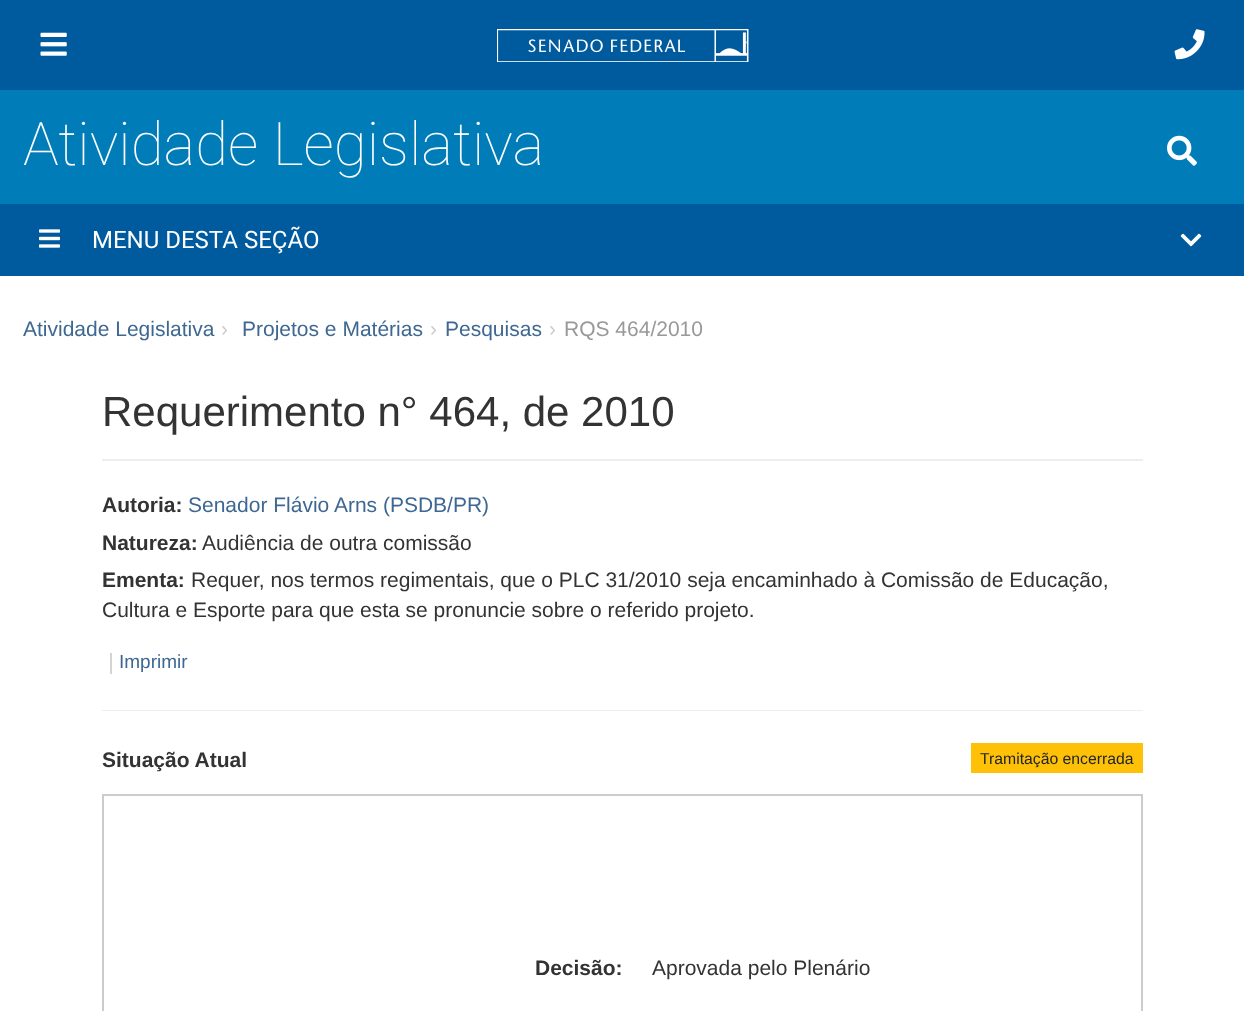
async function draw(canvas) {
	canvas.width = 1244;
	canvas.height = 1011;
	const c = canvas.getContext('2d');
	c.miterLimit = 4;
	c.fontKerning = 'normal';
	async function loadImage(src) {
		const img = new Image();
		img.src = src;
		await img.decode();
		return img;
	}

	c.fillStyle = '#fff';
	c.fillRect(0, 0, 1244, 1011);
	c.fillStyle = '#005b9e';
	c.fillRect(0, 0, 1244, 90);
	c.drawImage(await loadImage('img1.png'), 40, 32, 27, 24);
	c.drawImage(await loadImage('img2.png'), 497, 29, 252, 33);
	c.drawImage(await loadImage('img3.png'), 1174, 29, 31, 31);
	c.fillStyle = '#007db8';
	c.fillRect(0, 90, 1244, 114);
	c.font = '100 60px Roboto';
	c.fillStyle = '#fff';
	c.fillText('Atividade Legislativa', 23, 165);
	c.drawImage(await loadImage('img4.png'), 1167, 135, 30, 31);
	c.fillStyle = '#005b9e';
	c.fillRect(0, 204, 1244, 72);
	c.drawImage(await loadImage('img5.png'), 39, 229, 21, 19);
	c.font = '24px Roboto';
	c.fillStyle = '#fff';
	c.fillText('MENU DESTA SEÇÃO', 92, 248);
	c.drawImage(await loadImage('img6.png'), 1180, 233, 22, 14);
	c.font = '21px Liberation Sans';
	c.fillStyle = '#3e6892';
	c.fillText('Atividade Legislativa', 23, 336);
	c.fillStyle = '#ccc';
	c.fillText('›', 221, 336);
	c.fillStyle = '#3e6892';
	c.fillText('Projetos e Matérias', 242, 336);
	c.fillStyle = '#ccc';
	c.fillText('›', 430, 336);
	c.fillStyle = '#3e6892';
	c.fillText('Pesquisas', 445, 336);
	c.fillStyle = '#ccc';
	c.fillText('›', 549, 336);
	c.fillStyle = '#999';
	c.fillText('RQS 464/2010', 564, 336);
	c.fillStyle = '#eee';
	c.fillRect(102, 459, 1041, 2);
	c.font = '42px Liberation Sans';
	c.fillStyle = '#333';
	c.fillText('Requerimento n° 464, de 2010', 102, 426);
	c.font = 'bold 21px Liberation Sans';
	c.fillText('Autoria:', 102, 512);
	c.font = '21px Liberation Sans';
	c.fillStyle = '#3e6892';
	c.fillText('Senador Flávio Arns (PSDB/PR)', 188, 512);
	c.font = 'bold 21px Liberation Sans';
	c.fillStyle = '#333';
	c.fillText('Natureza:', 102, 550);
	c.font = '21px Liberation Sans';
	c.fillText('Audiência de outra comissão', 202, 550);
	c.font = 'bold 21px Liberation Sans';
	c.fillText('Ementa:', 102, 587);
	c.font = '21px Liberation Sans';
	c.fillText('Requer, nos termos regimentais, que o PLC 31/2010 seja encaminhado à Comissão de Educação,', 191, 587);
	c.fillText('Cultura e Esporte para que esta se pronuncie sobre o referido projeto.', 102, 617);
	c.fillStyle = '#d3d3d3';
	c.fillRect(110, 653, 2, 21);
	c.font = '19px Liberation Sans';
	c.fillStyle = '#3e6892';
	c.fillText('Imprimir', 119, 668);
	c.fillStyle = '#eee';
	c.fillRect(102, 710, 1041, 1);
	c.font = 'bold 21px Liberation Sans';
	c.fillStyle = '#333';
	c.fillText('Situação Atual', 102, 767);
	c.fillStyle = '#ffc107';
	c.fillRect(971, 743, 172, 30);
	c.font = '15.75px Liberation Sans';
	c.fillStyle = '#212529';
	c.fillText('Tramitação encerrada', 980, 764);
	c.strokeStyle = '#ccc';
	c.lineWidth = 2;
	c.strokeRect(103, 795, 1039, 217);
	c.font = 'bold 21px Liberation Sans';
	c.fillStyle = '#333';
	c.fillText('Decisão:', 535, 975);
	c.font = '21px Liberation Sans';
	c.fillText('Aprovada pelo Plenário', 652, 975);
}

draw(document.querySelector('canvas'));
